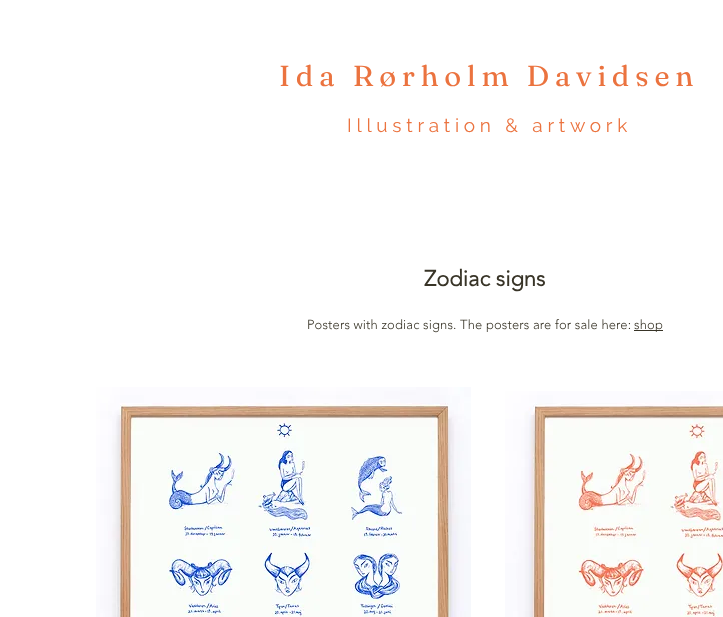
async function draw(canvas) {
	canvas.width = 723;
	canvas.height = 617;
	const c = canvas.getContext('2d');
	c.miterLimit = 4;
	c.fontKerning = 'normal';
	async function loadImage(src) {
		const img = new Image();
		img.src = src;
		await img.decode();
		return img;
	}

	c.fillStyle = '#fff';
	c.fillRect(0, 0, 723, 617);
	c.letterSpacing = '5.75px';
	c.font = '29px Fraunces';
	c.fillStyle = '#eb733f';
	c.fillText('Ida Rørholm Davidsen', 279, 86);
	c.letterSpacing = '4.75px';
	c.font = '19px Raleway';
	c.fillText('Illustration & artwork', 347, 132);
	c.letterSpacing = '0px';
	c.font = 'bold 22px "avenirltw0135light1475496"';
	c.fillStyle = '#383427';
	c.fillText('Zodiac signs', 424, 286);
	c.letterSpacing = '0.13px';
	c.font = '300 13px "avenirltw0135light1475496"';
	c.fillText('Posters with zodiac signs. The posters are for sale here:', 307, 329);
	c.fillRect(634, 330, 29, 1);
	c.fillText('shop', 634, 329);
	c.drawImage(await loadImage('img1.png'), 96, 387, 375, 230);
	c.drawImage(await loadImage('img2.png'), 505, 391, 218, 226);
}

draw(document.querySelector('canvas'));
